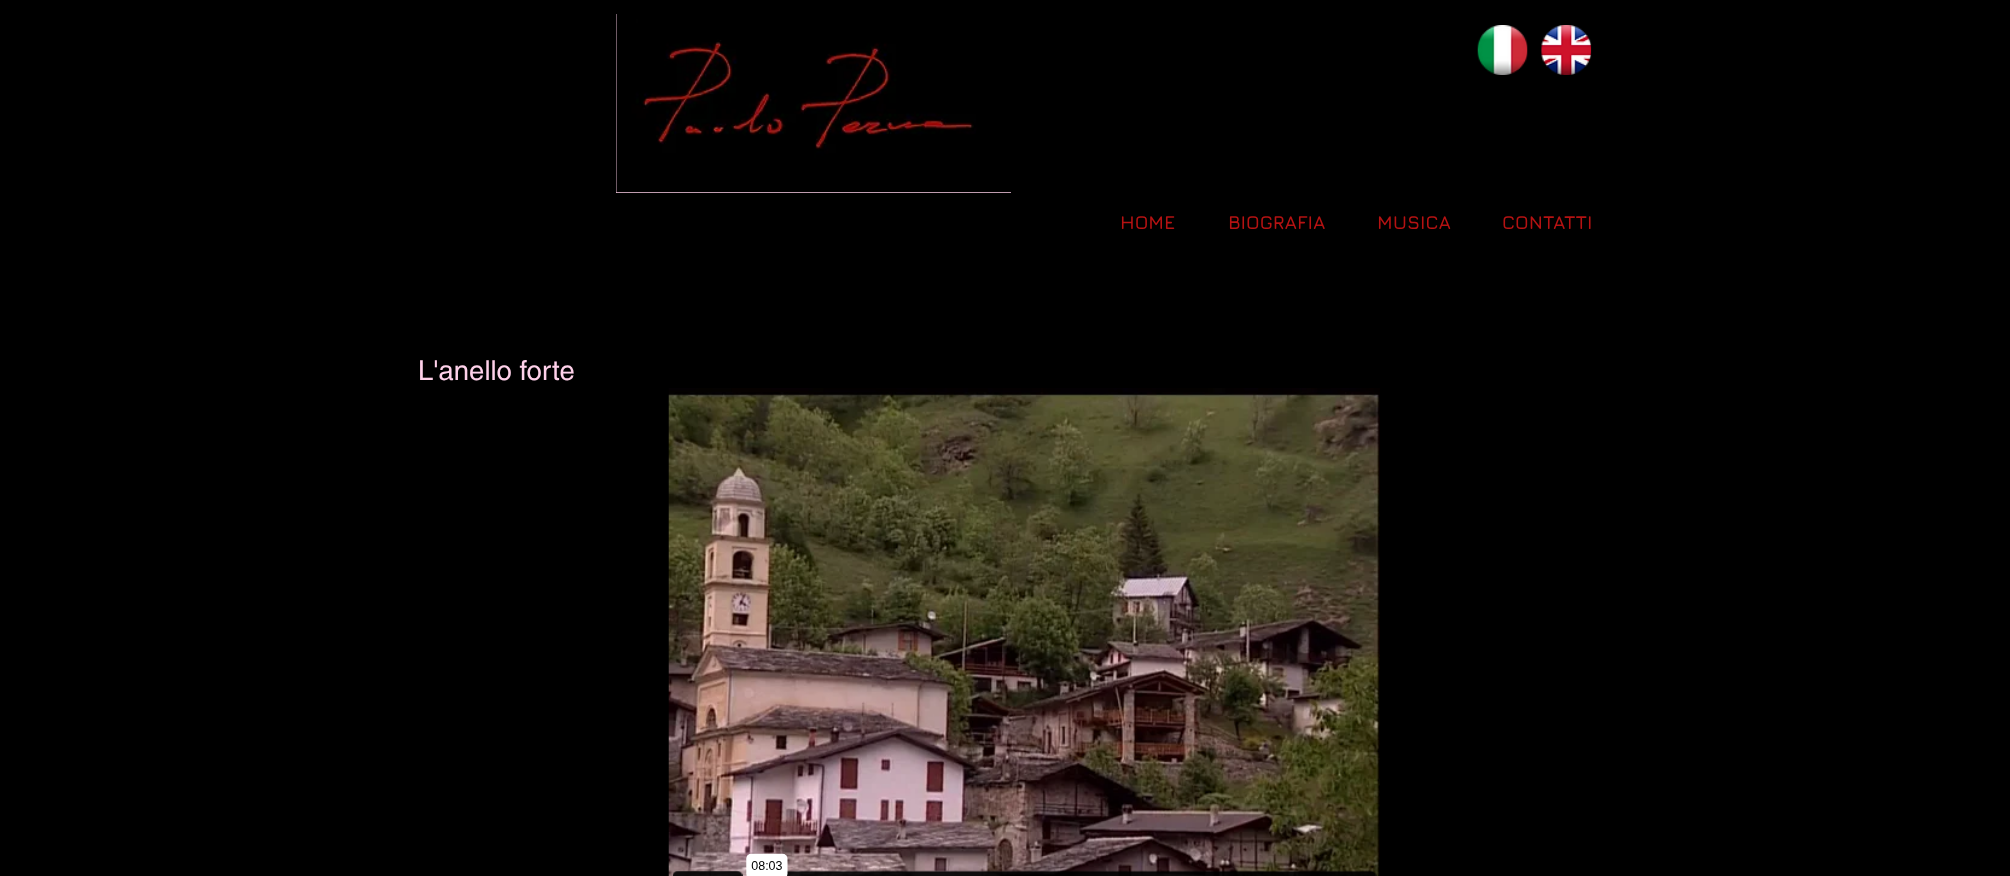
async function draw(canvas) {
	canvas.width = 2010;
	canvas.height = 876;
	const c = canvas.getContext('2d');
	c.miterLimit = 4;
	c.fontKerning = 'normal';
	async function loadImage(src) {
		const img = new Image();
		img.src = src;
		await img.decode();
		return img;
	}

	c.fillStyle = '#000';
	c.fillRect(0, 0, 2010, 876);
	c.fillStyle = '#ffd1ea';
	c.fillRect(616, 14, 395, 179);
	c.drawImage(await loadImage('img1.png'), 616, 14, 395, 179);
	c.drawImage(await loadImage('img2.png'), 1477, 25, 51, 50);
	c.drawImage(await loadImage('img3.png'), 1541, 25, 51, 50);
	c.font = 'bold 18.75px Jura';
	c.fillStyle = '#b51212';
	for (const [text, x, y] of [
		['HOME', 1120, 229],
		['BIOGRAFIA', 1228, 229],
		['MUSICA', 1377, 229],
		['CONTATTI', 1502, 229],
	]) {
		c.fillText(text, x, y);
	}
	c.font = '27.5px helvetica';
	c.fillStyle = '#ffd1ea';
	c.fillText('L\'anello forte', 418, 380);
	c.drawImage(await loadImage('img4.png'), 668, 388, 712, 488);
}

draw(document.querySelector('canvas'));
